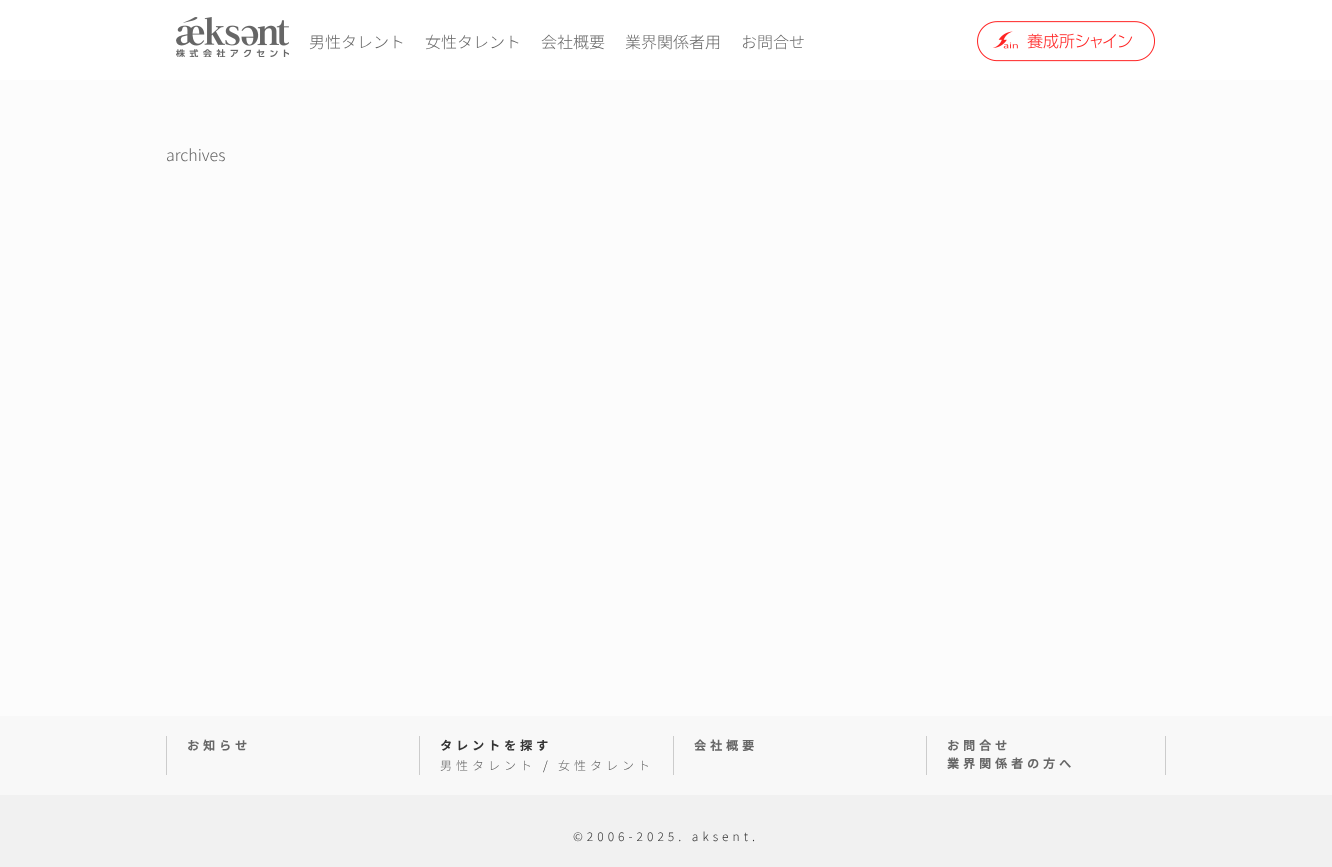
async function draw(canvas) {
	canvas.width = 1332;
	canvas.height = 867;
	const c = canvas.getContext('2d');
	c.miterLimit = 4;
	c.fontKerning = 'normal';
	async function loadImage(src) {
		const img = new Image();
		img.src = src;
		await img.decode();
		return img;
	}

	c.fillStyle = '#fcfcfc';
	c.fillRect(0, 0, 1332, 867);
	c.fillStyle = '#fff';
	c.fillRect(0, 0, 1332, 80);
	c.drawImage(await loadImage('img1.png'), 176, 17, 113, 40);
	c.font = '300 16px Noto Sans JP';
	c.fillStyle = '#666';
	for (const [text, x, y] of [
		['男性タレント', 309, 48],
		['女性タレント', 425, 48],
		['会社概要', 541, 48],
		['業界関係者用', 625, 48],
		['お問合せ', 741, 48],
	]) {
		c.fillText(text, x, y);
	}
	c.drawImage(await loadImage('img2.png'), 977, 21, 178, 41);
	c.fillText('archives', 166, 161);
	for (const [x, y, w, h, color] of [
		[0, 795, 1332, 72, '#f1f1f1'],
		[0, 716, 1332, 79, '#f8f8f8'],
		[166, 736, 1, 39, '#ccc'],
	]) {
		c.fillStyle = color;
		c.fillRect(x, y, w, h);
	}
	c.letterSpacing = '4px';
	c.font = 'bold 12px Noto Sans JP';
	c.fillStyle = '#666';
	c.fillText('お知らせ', 187, 750);
	c.fillStyle = '#ccc';
	c.fillRect(419, 736, 1, 39);
	c.fillStyle = '#333';
	c.fillText('タレントを探す', 440, 750);
	c.font = '300 12px Noto Sans JP';
	c.fillStyle = '#666';
	c.fillText('男性タレント', 440, 770);
	c.fillStyle = '#333';
	c.fillText('/', 543, 770);
	c.fillStyle = '#666';
	c.fillText('女性タレント', 558, 770);
	c.fillStyle = '#ccc';
	c.fillRect(673, 736, 1, 39);
	c.font = 'bold 12px Noto Sans JP';
	c.fillStyle = '#666';
	c.fillText('会社概要', 694, 750);
	c.fillStyle = '#ccc';
	c.fillRect(1165, 736, 1, 39);
	c.fillRect(926, 736, 1, 39);
	c.fillStyle = '#666';
	c.fillText('お問合せ', 947, 750);
	c.fillText('業界関係者の方へ', 947, 768);
	c.font = '300 12px Noto Sans JP';
	c.fillStyle = '#333';
	c.fillText('©2006-2025. aksent.', 573, 841);
}

draw(document.querySelector('canvas'));
